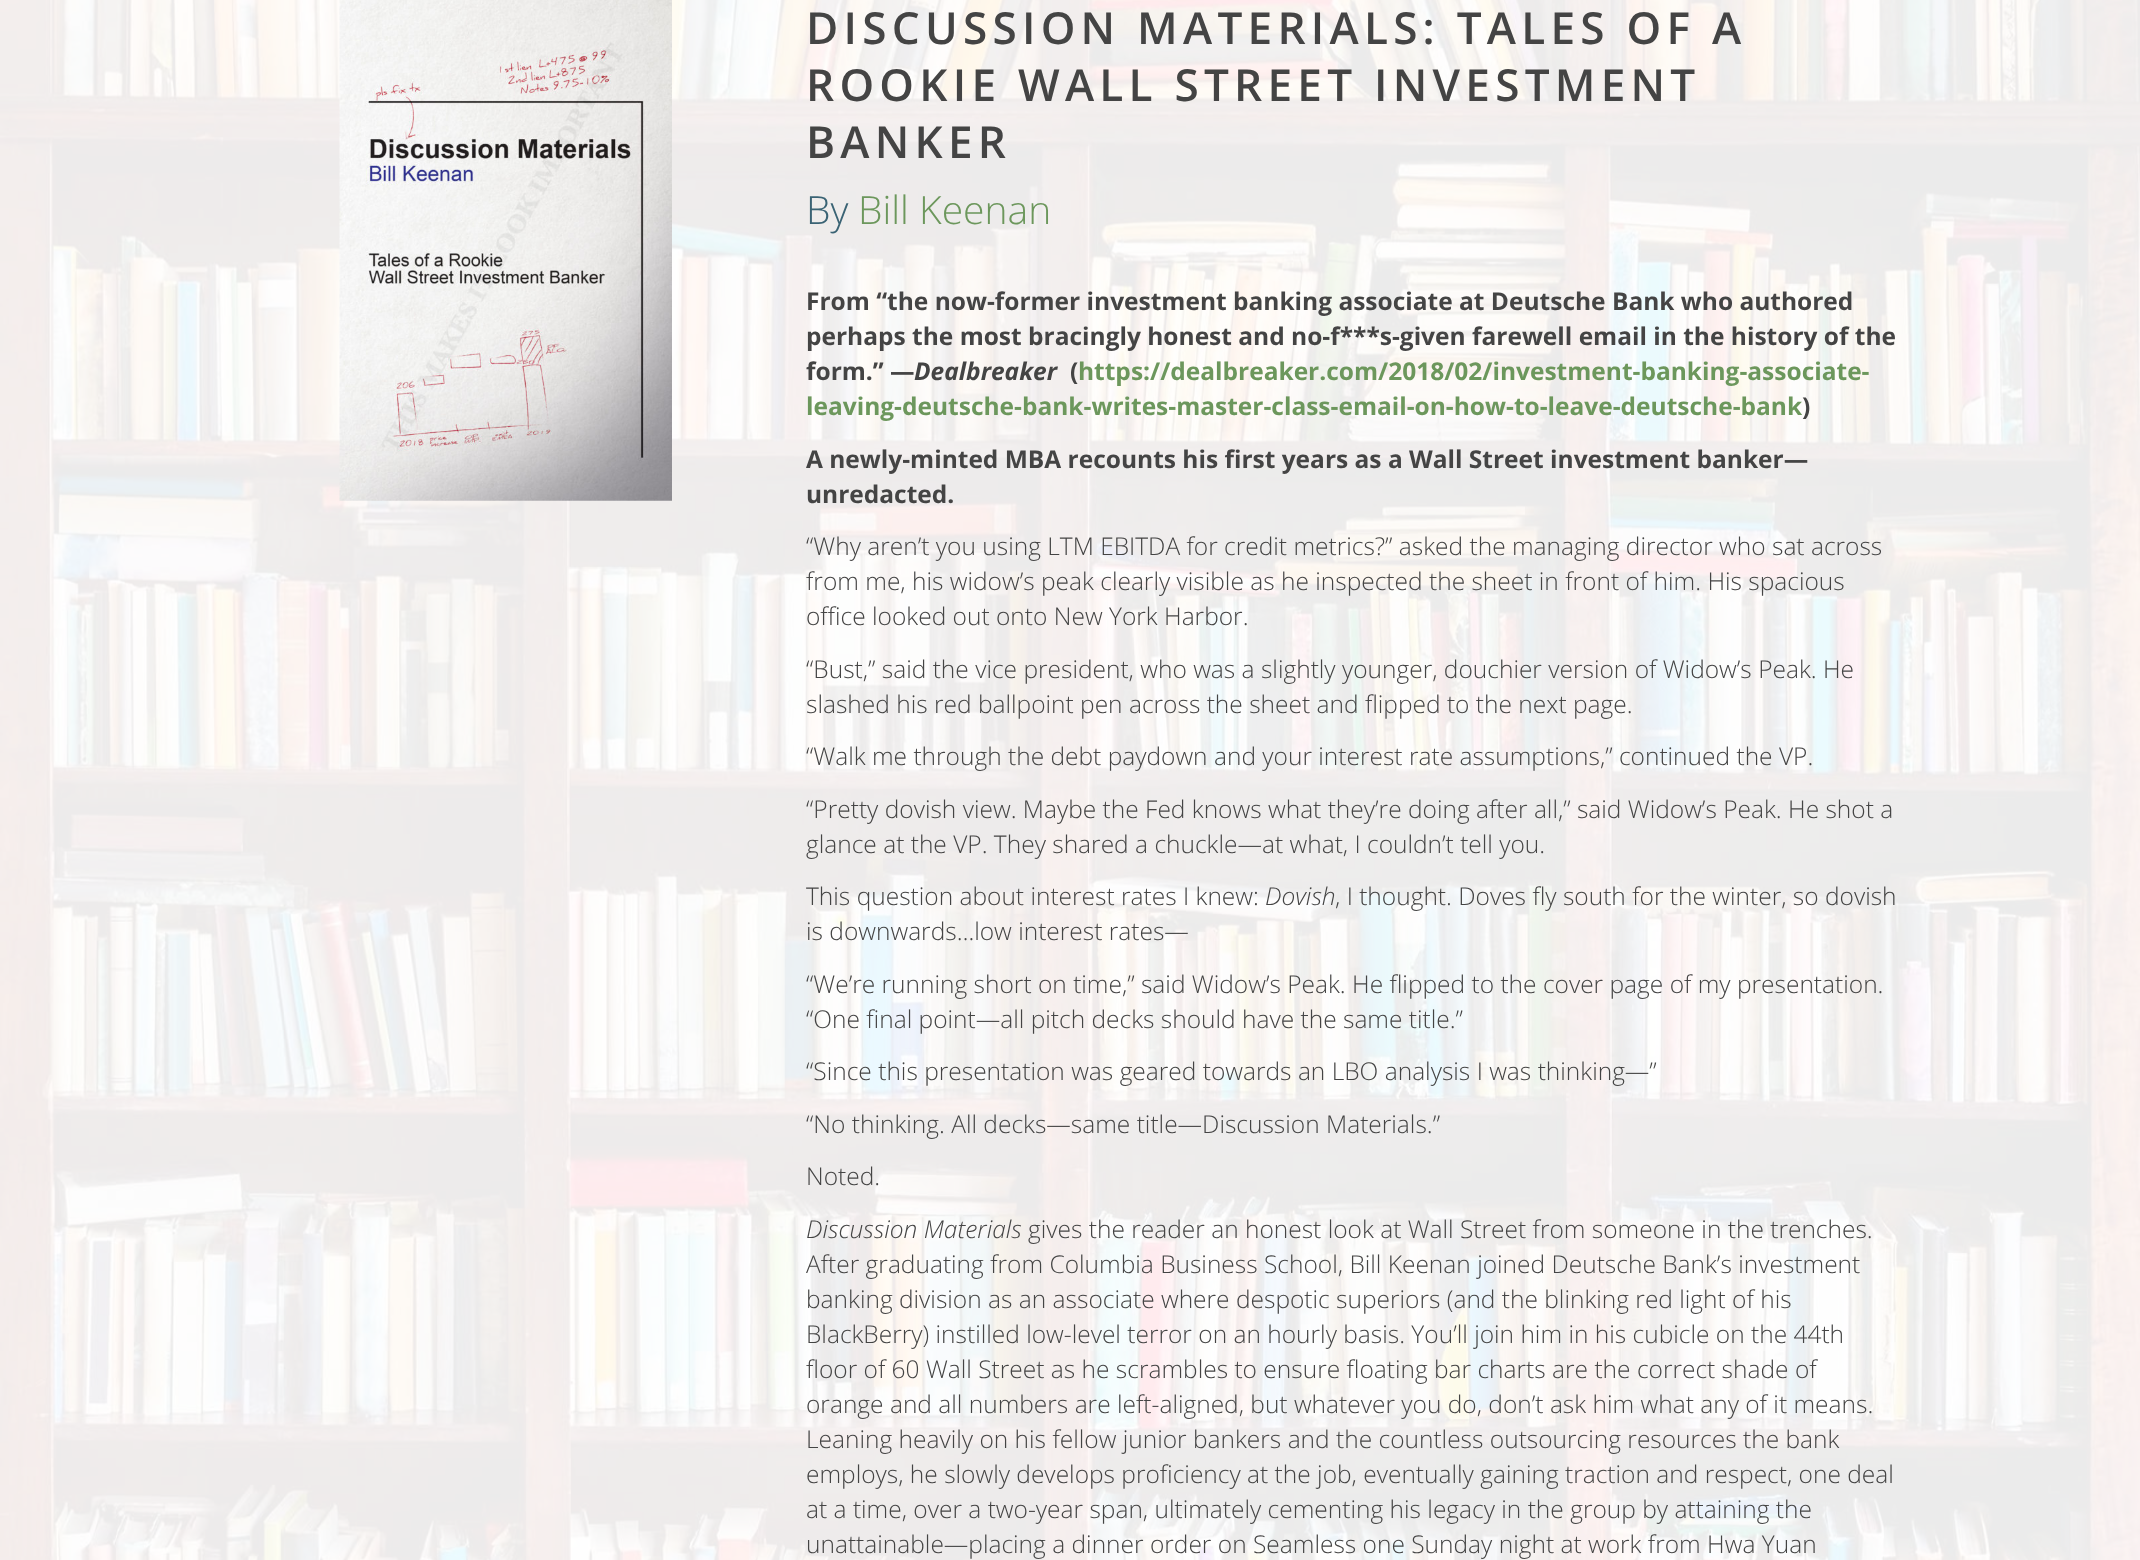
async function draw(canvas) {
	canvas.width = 2140;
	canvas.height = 1560;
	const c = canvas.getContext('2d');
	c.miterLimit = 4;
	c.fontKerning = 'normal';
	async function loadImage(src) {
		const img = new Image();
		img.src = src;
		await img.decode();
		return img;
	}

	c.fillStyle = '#fff';
	c.fillRect(0, 0, 2140, 1560);
	c.drawImage(await loadImage('img1.png'), 0, 0, 2140, 1560);
	c.drawImage(await loadImage('img2.png'), 339, 0, 333, 501);
	c.letterSpacing = '5.25px';
	c.font = '600 44.1px Open Sans';
	c.fillStyle = '#444';
	for (const [text, x, y] of [
		['DISCUSSION MATERIALS: TALES OF A', 806, 44],
		['ROOKIE WALL STREET INVESTMENT', 806, 101],
		['BANKER', 806, 158],
	]) {
		c.fillText(text, x, y);
	}
	c.letterSpacing = '0px';
	c.font = '300 39px Open Sans';
	c.fillStyle = '#3a6374';
	c.fillText('By', 806, 224);
	c.fillStyle = '#6c975c';
	c.fillText('Bill Keenan', 858, 224);
	c.font = 'bold 24.5px Open Sans';
	c.fillStyle = '#444';
	for (const [text, x, y] of [
		['From “the now-former investment banking associate at Deutsche Bank who authored', 806, 310],
		['perhaps the most bracingly honest and no-f***s-given farewell email in the history of the', 806, 345],
		['form.” —', 806, 380],
	]) {
		c.fillText(text, x, y);
	}
	c.font = 'italic bold 24.5px Open Sans';
	c.fillText('Dealbreaker', 914, 380);
	c.font = 'bold 24.5px Open Sans';
	c.fillText('(', 1070, 380);
	c.fillStyle = '#6c975c';
	c.fillText('https://dealbreaker.com/2018/02/investment-banking-associate-', 1078, 380);
	c.fillText('leaving-deutsche-bank-writes-master-class-email-on-how-to-leave-deutsche-bank', 806, 415);
	c.fillStyle = '#444';
	for (const [text, x, y] of [
		[')', 1802, 415],
		['A newly-minted MBA recounts his first years as a Wall Street investment banker—', 806, 468],
		['unredacted.', 806, 503],
	]) {
		c.fillText(text, x, y);
	}
	c.font = '300 24.5px Open Sans';
	for (const [text, x, y] of [
		['“Why aren’t you using LTM EBITDA for credit metrics?” asked the managing director who sat across', 806, 555],
		['from me, his widow’s peak clearly visible as he inspected the sheet in front of him. His spacious', 806, 590],
		['office looked out onto New York Harbor.', 806, 625],
		['“Bust,” said the vice president, who was a slightly younger, douchier version of Widow’s Peak. He', 806, 678],
		['slashed his red ballpoint pen across the sheet and flipped to the next page.', 806, 713],
		['“Walk me through the debt paydown and your interest rate assumptions,” continued the VP.', 806, 765],
		['“Pretty dovish view. Maybe the Fed knows what they’re doing after all,” said Widow’s Peak. He shot a', 806, 818],
		['glance at the VP. They shared a chuckle—at what, I couldn’t tell you.', 806, 853],
		['This question about interest rates I knew:', 806, 905],
	]) {
		c.fillText(text, x, y);
	}
	c.font = 'italic 300 24.5px Open Sans';
	c.fillText('Dovish', 1265, 905);
	c.font = '300 24.5px Open Sans';
	for (const [text, x, y] of [
		[', I thought. Doves fly south for the winter, so dovish', 1335, 905],
		['is downwards…low interest rates—', 806, 940],
		['“We’re running short on time,” said Widow’s Peak. He flipped to the cover page of my presentation.', 806, 993],
		['“One final point—all pitch decks should have the same title.”', 806, 1028],
		['“Since this presentation was geared towards an LBO analysis I was thinking—”', 806, 1080],
		['“No thinking. All decks—same title—Discussion Materials.”', 806, 1133],
		['Noted.', 806, 1185],
	]) {
		c.fillText(text, x, y);
	}
	c.font = 'italic 300 24.5px Open Sans';
	c.fillText('Discussion Materials', 806, 1238);
	c.font = '300 24.5px Open Sans';
	for (const [text, x, y] of [
		['gives the reader an honest look at Wall Street from someone in the trenches.', 1028, 1238],
		['After graduating from Columbia Business School, Bill Keenan joined Deutsche Bank’s investment', 806, 1273],
		['banking division as an associate where despotic superiors (and the blinking red light of his', 806, 1308],
		['BlackBerry) instilled low-level terror on an hourly basis. You’ll join him in his cubicle on the 44th', 806, 1343],
		['floor of 60 Wall Street as he scrambles to ensure floating bar charts are the correct shade of', 806, 1378],
		['orange and all numbers are left-aligned, but whatever you do, don’t ask him what any of it means.', 806, 1413],
		['Leaning heavily on his fellow junior bankers and the countless outsourcing resources the bank', 806, 1448],
		['employs, he slowly develops proficiency at the job, eventually gaining traction and respect, one deal', 806, 1483],
		['at a time, over a two-year span, ultimately cementing his legacy in the group by attaining the', 806, 1518],
		['unattainable—placing a dinner order on Seamless one Sunday night at work from Hwa Yuan', 806, 1553],
	]) {
		c.fillText(text, x, y);
	}
}

draw(document.querySelector('canvas'));
